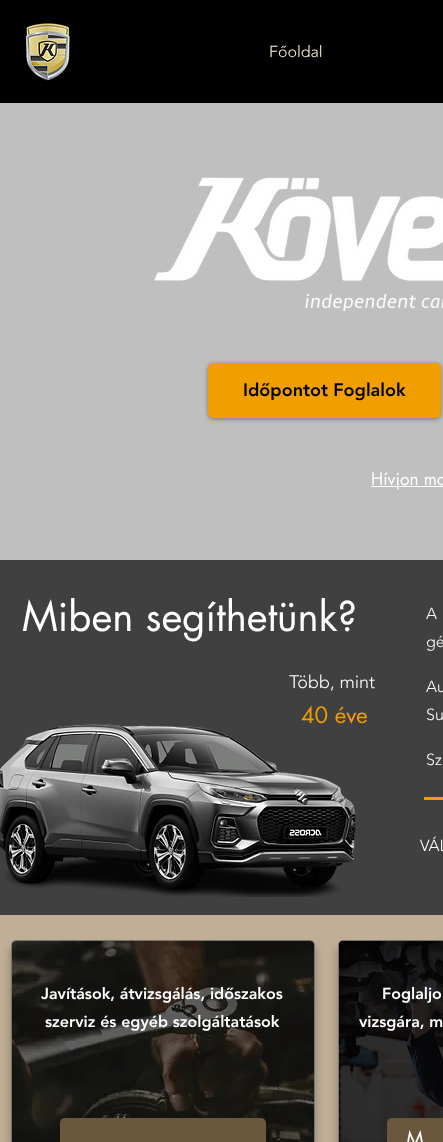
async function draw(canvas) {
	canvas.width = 443;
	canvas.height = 1142;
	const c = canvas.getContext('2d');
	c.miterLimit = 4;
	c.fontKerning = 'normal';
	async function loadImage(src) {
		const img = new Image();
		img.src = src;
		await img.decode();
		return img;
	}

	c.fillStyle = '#bfbfbf';
	c.fillRect(0, 0, 443, 1142);
	c.fillStyle = '#000';
	c.fillRect(0, 0, 443, 103);
	c.drawImage(await loadImage('img1.png'), 26, 23, 44, 58);
	c.font = '300 16px "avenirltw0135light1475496"';
	c.fillStyle = '#fff5e2';
	c.fillText('Főoldal', 269, 57);
	c.drawImage(await loadImage('img2.png'), 154, 177, 289, 134);
	c.fillStyle = '#40404099';
	c.filter = 'blur(2px)';
	c.beginPath();
	c.roundRect(208, 364, 233, 55, 5);
	c.fill();
	c.filter = 'none';
	c.fillStyle = '#f19e00';
	c.beginPath();
	c.roundRect(208, 363, 233, 55, 5);
	c.fill();
	c.font = '900 18px "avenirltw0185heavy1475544"';
	c.fillStyle = '#000';
	c.fillText('Időpontot Foglalok', 243, 396);
	c.fillStyle = '#fff';
	c.fillRect(371, 486, 72, 1);
	c.font = '17px futura';
	c.fillText('Hívjon mo', 371, 485);
	c.fillStyle = '#404040';
	c.fillRect(0, 560, 443, 355);
	c.font = '40px futura';
	c.fillStyle = '#fff';
	c.fillText('Miben segíthetünk?', 22, 631);
	c.font = '300 18px "avenirltw0135light1475496"';
	c.fillText('Több, mint', 289, 688);
	c.font = '22px futura';
	c.fillStyle = '#f19e00';
	c.fillText('40 éve', 301, 723);
	c.drawImage(await loadImage('img3.png'), 0, 724, 356, 173);
	c.font = '300 16px "avenirltw0135light1475496"';
	c.fillStyle = '#fff';
	for (const [text, x, y] of [
		['A', 426, 619],
		['gé', 426, 647],
		['Au', 426, 692],
		['Su', 426, 720],
		['Sz', 426, 765],
	]) {
		c.fillText(text, x, y);
	}
	c.fillStyle = '#f19e00';
	c.fillRect(424, 797, 19, 3);
	c.fillStyle = '#fff';
	c.fillText('VÁL', 420, 851);
	c.fillStyle = '#c0af96';
	c.fillRect(0, 915, 443, 227);
	c.fillStyle = '#00000033';
	c.filter = 'blur(3.5px)';
	c.beginPath();
	c.roundRect(9, 946, 308, 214, 7);
	c.fill();
	c.filter = 'none';
	c.beginPath();
	c.roundRect(11.5, 940.5, 303, 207, 4.5);
	c.strokeStyle = '#757575';
	c.stroke();
	c.drawImage(await loadImage('img4.png'), 12, 941, 302, 201);
	c.font = '900 16px "avenirltw0185heavy1475544"';
	c.fillStyle = '#fff';
	c.fillText('Javítások, átvizsgálás, időszakos', 41, 999);
	c.fillText('szerviz és egyéb szolgáltatások', 45, 1027);
	c.fillStyle = '#6b583c';
	c.beginPath();
	c.roundRect(60, 1118, 206, 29, 5);
	c.fill();
	c.fillStyle = '#00000033';
	c.filter = 'blur(3.5px)';
	c.beginPath();
	c.roundRect(336, 946, 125, 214, 7);
	c.fill();
	c.filter = 'none';
	c.beginPath();
	c.roundRect(338.5, 940.5, 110, 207, 4.5);
	c.stroke();
	c.fillStyle = '#000';
	c.beginPath();
	c.roundRect(339, 941, 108, 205, 4);
	c.fill();
	c.drawImage(await loadImage('img5.png'), 339, 941, 104, 201);
	c.fillStyle = '#fff';
	c.fillText('Foglaljo', 382, 999);
	c.fillText('vizsgára, m', 359, 1027);
	c.fillStyle = '#6b583c';
	c.beginPath();
	c.roundRect(387, 1118, 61, 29, 5);
	c.fill();
	c.letterSpacing = '2px';
	c.font = '20px futura';
	c.fillStyle = '#fff';
	c.fillText('M', 406, 1146);
}

draw(document.querySelector('canvas'));
